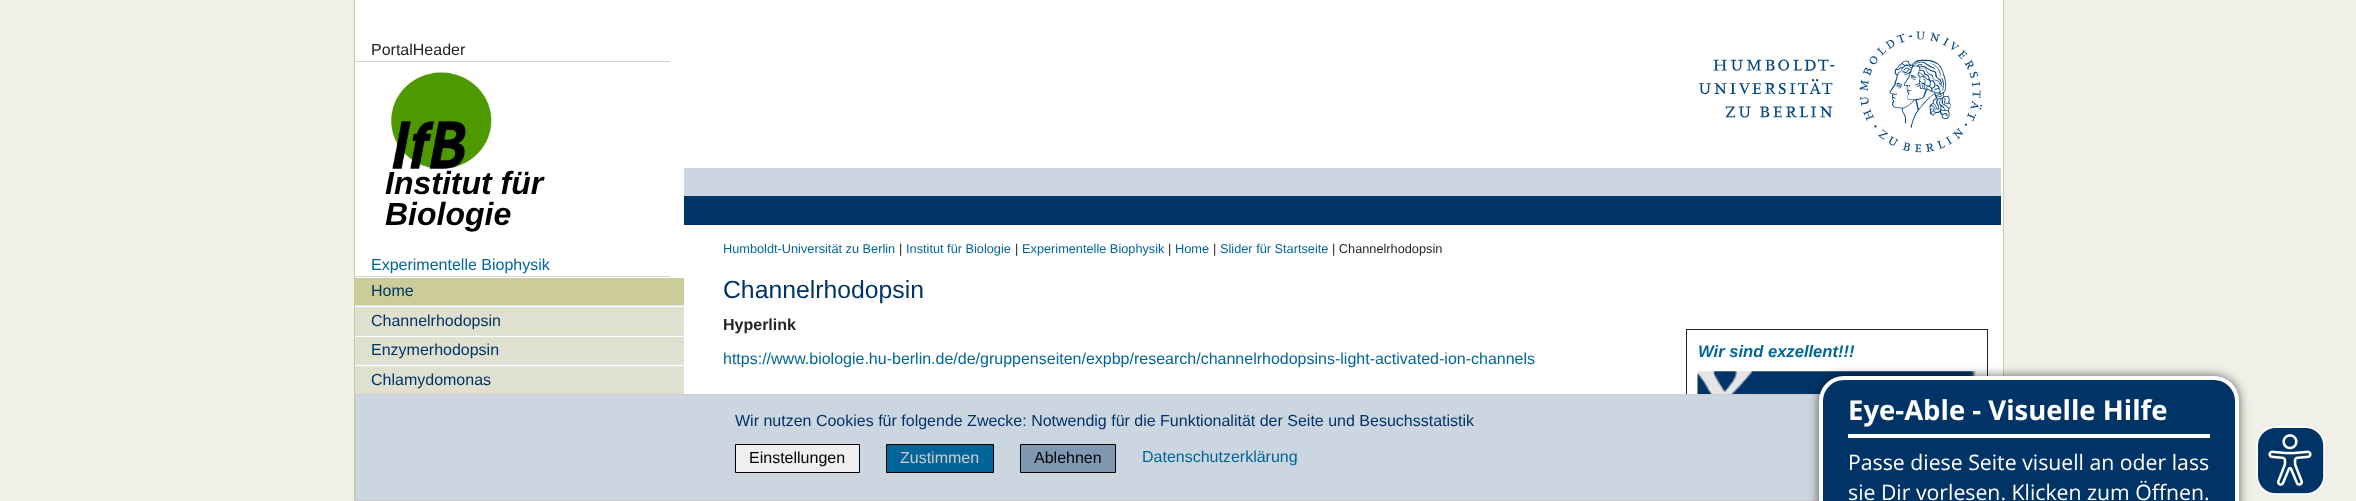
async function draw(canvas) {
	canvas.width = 2356;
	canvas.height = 501;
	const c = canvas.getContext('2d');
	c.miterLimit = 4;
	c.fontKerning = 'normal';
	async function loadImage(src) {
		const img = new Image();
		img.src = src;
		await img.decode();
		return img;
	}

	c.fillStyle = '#f0f0e8';
	c.fillRect(0, 0, 2356, 501);
	c.fillStyle = '#fff';
	c.fillRect(355, 0, 1648, 394);
	c.drawImage(await loadImage('img1.png'), 1699, 31, 283, 122);
	for (const [x, y, w, h, color] of [
		[2003, 0, 1, 376, '#cc9'],
		[354, 0, 1, 501, '#cc9'],
		[355, 61, 315, 1, '#d2d2d2'],
	]) {
		c.fillStyle = color;
		c.fillRect(x, y, w, h);
	}
	c.font = '16px Liberation Sans';
	c.fillStyle = '#212529';
	c.fillText('PortalHeader', 371, 55);
	c.drawImage(await loadImage('img2.png'), 391, 72, 101, 97);
	c.font = 'italic bold 32px Liberation Sans';
	c.fillStyle = '#000';
	c.fillText('Institut für', 385, 194);
	c.fillText('Biologie', 385, 225);
	c.fillStyle = '#d2d2d2';
	c.fillRect(355, 276, 315, 1);
	c.font = '16px Liberation Sans';
	c.fillStyle = '#069';
	c.fillText('Experimentelle Biophysik', 371, 270);
	c.fillStyle = '#cc9';
	c.fillRect(355, 278, 329, 27);
	c.fillStyle = '#036';
	c.fillText('Home', 371, 296);
	c.fillStyle = '#e0e0d1';
	c.fillRect(355, 307, 329, 28);
	c.fillStyle = '#dee2e6';
	c.fillRect(355, 305, 329, 1);
	c.fillStyle = '#036';
	c.fillText('Channelrhodopsin', 371, 326);
	c.fillStyle = '#e0e0d1';
	c.fillRect(355, 337, 329, 27);
	c.fillStyle = '#dee2e6';
	c.fillRect(355, 335, 329, 1);
	c.fillStyle = '#036';
	c.fillText('Enzymerhodopsin', 371, 355);
	c.fillStyle = '#e0e0d1';
	c.fillRect(355, 366, 329, 28);
	c.fillStyle = '#dee2e6';
	c.fillRect(355, 364, 329, 1);
	c.fillStyle = '#036';
	c.fillText('Chlamydomonas', 371, 385);
	c.fillStyle = '#ccd6e0';
	c.fillRect(684, 168, 1317, 28);
	c.fillStyle = '#036';
	c.fillRect(684, 196, 1317, 29);
	c.font = '12.75px Liberation Sans';
	c.fillStyle = '#069';
	c.fillText('Humboldt-Universität zu Berlin', 723, 253);
	c.fillStyle = '#212529';
	c.fillText('|', 899, 253);
	c.fillStyle = '#069';
	c.fillText('Institut für Biologie', 906, 253);
	c.fillStyle = '#212529';
	c.fillText('|', 1015, 253);
	c.fillStyle = '#069';
	c.fillText('Experimentelle Biophysik', 1022, 253);
	c.fillStyle = '#212529';
	c.fillText('|', 1168, 253);
	c.fillStyle = '#069';
	c.fillText('Home', 1175, 253);
	c.fillStyle = '#212529';
	c.fillText('|', 1213, 253);
	c.fillStyle = '#069';
	c.fillText('Slider für Startseite', 1220, 253);
	c.fillStyle = '#212529';
	c.fillText('| Channelrhodopsin', 1332, 253);
	c.font = '24.75px Liberation Sans';
	c.fillStyle = '#036';
	c.fillText('Channelrhodopsin', 723, 298);
	c.font = 'bold 16px Liberation Sans';
	c.fillStyle = '#212529';
	c.fillText('Hyperlink', 723, 330);
	c.font = '16px Liberation Sans';
	c.fillStyle = '#069';
	c.fillText('https://www.biologie.hu-berlin.de/de/gruppenseiten/expbp/research/channelrhodopsins-light-activated-ion-channels', 723, 364);
	c.strokeStyle = '#212529';
	c.strokeRect(1686.5, 329.5, 301, 115);
	c.font = 'italic bold 16.6px Liberation Sans';
	c.fillText('Wir sind exzellent!!!', 1698, 357);
	c.drawImage(await loadImage('img3.png'), 1697, 371, 280, 23);
	c.fillStyle = '#ccd6e0';
	c.fillRect(356, 395, 1464, 105);
	c.strokeStyle = '#ccc';
	c.strokeRect(355.5, 394.5, 1649, 106);
	c.font = '16px Liberation Sans';
	c.fillStyle = '#036';
	c.fillText('Wir nutzen Cookies für folgende Zwecke: Notwendig für die Funktionalität der Seite und Besuchsstatistik', 735, 426);
	c.fillStyle = '#efefef';
	c.beginPath();
	c.rect(735.5, 444.5, 124, 28);
	c.fill();
	c.strokeStyle = '#000';
	c.stroke();
	c.fillStyle = '#000';
	c.fillText('Einstellungen', 749, 463);
	c.fillStyle = '#069';
	c.beginPath();
	c.rect(886.5, 444.5, 107, 28);
	c.fill();
	c.stroke();
	c.fillStyle = '#d5c7c7';
	c.fillText('Zustimmen', 900, 463);
	c.fillStyle = '#8099b2';
	c.beginPath();
	c.rect(1020.5, 444.5, 95, 28);
	c.fill();
	c.stroke();
	c.fillStyle = '#000';
	c.fillText('Ablehnen', 1034, 463);
	c.fillStyle = '#069';
	c.fillText('Datenschutzerklärung', 1142, 462);
	c.fillStyle = '#00000080';
	c.filter = 'blur(5px)';
	c.beginPath();
	c.roundRect(1818, 375, 422, 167, 26);
	c.fill();
	c.filter = 'none';
	c.fillStyle = '#036';
	c.beginPath();
	c.roundRect(1821, 378, 416, 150, 23);
	c.fill();
	c.strokeStyle = '#fff';
	c.lineWidth = 4;
	c.stroke();
	c.fillStyle = '#fff';
	c.fillRect(1848, 434, 362, 4);
	c.font = 'bold 27.5px Open Sans';
	c.fillText('Eye-Able - Visuelle Hilfe', 1848, 420);
	c.font = '21.25px Open Sans';
	c.fillText('Passe diese Seite visuell an oder lass', 1848, 470);
	c.fillText('sie Dir vorlesen. Klicken zum Öffnen.', 1848, 500);
	c.drawImage(await loadImage('img4.png'), 2256, 426, 69, 69);
}

draw(document.querySelector('canvas'));
